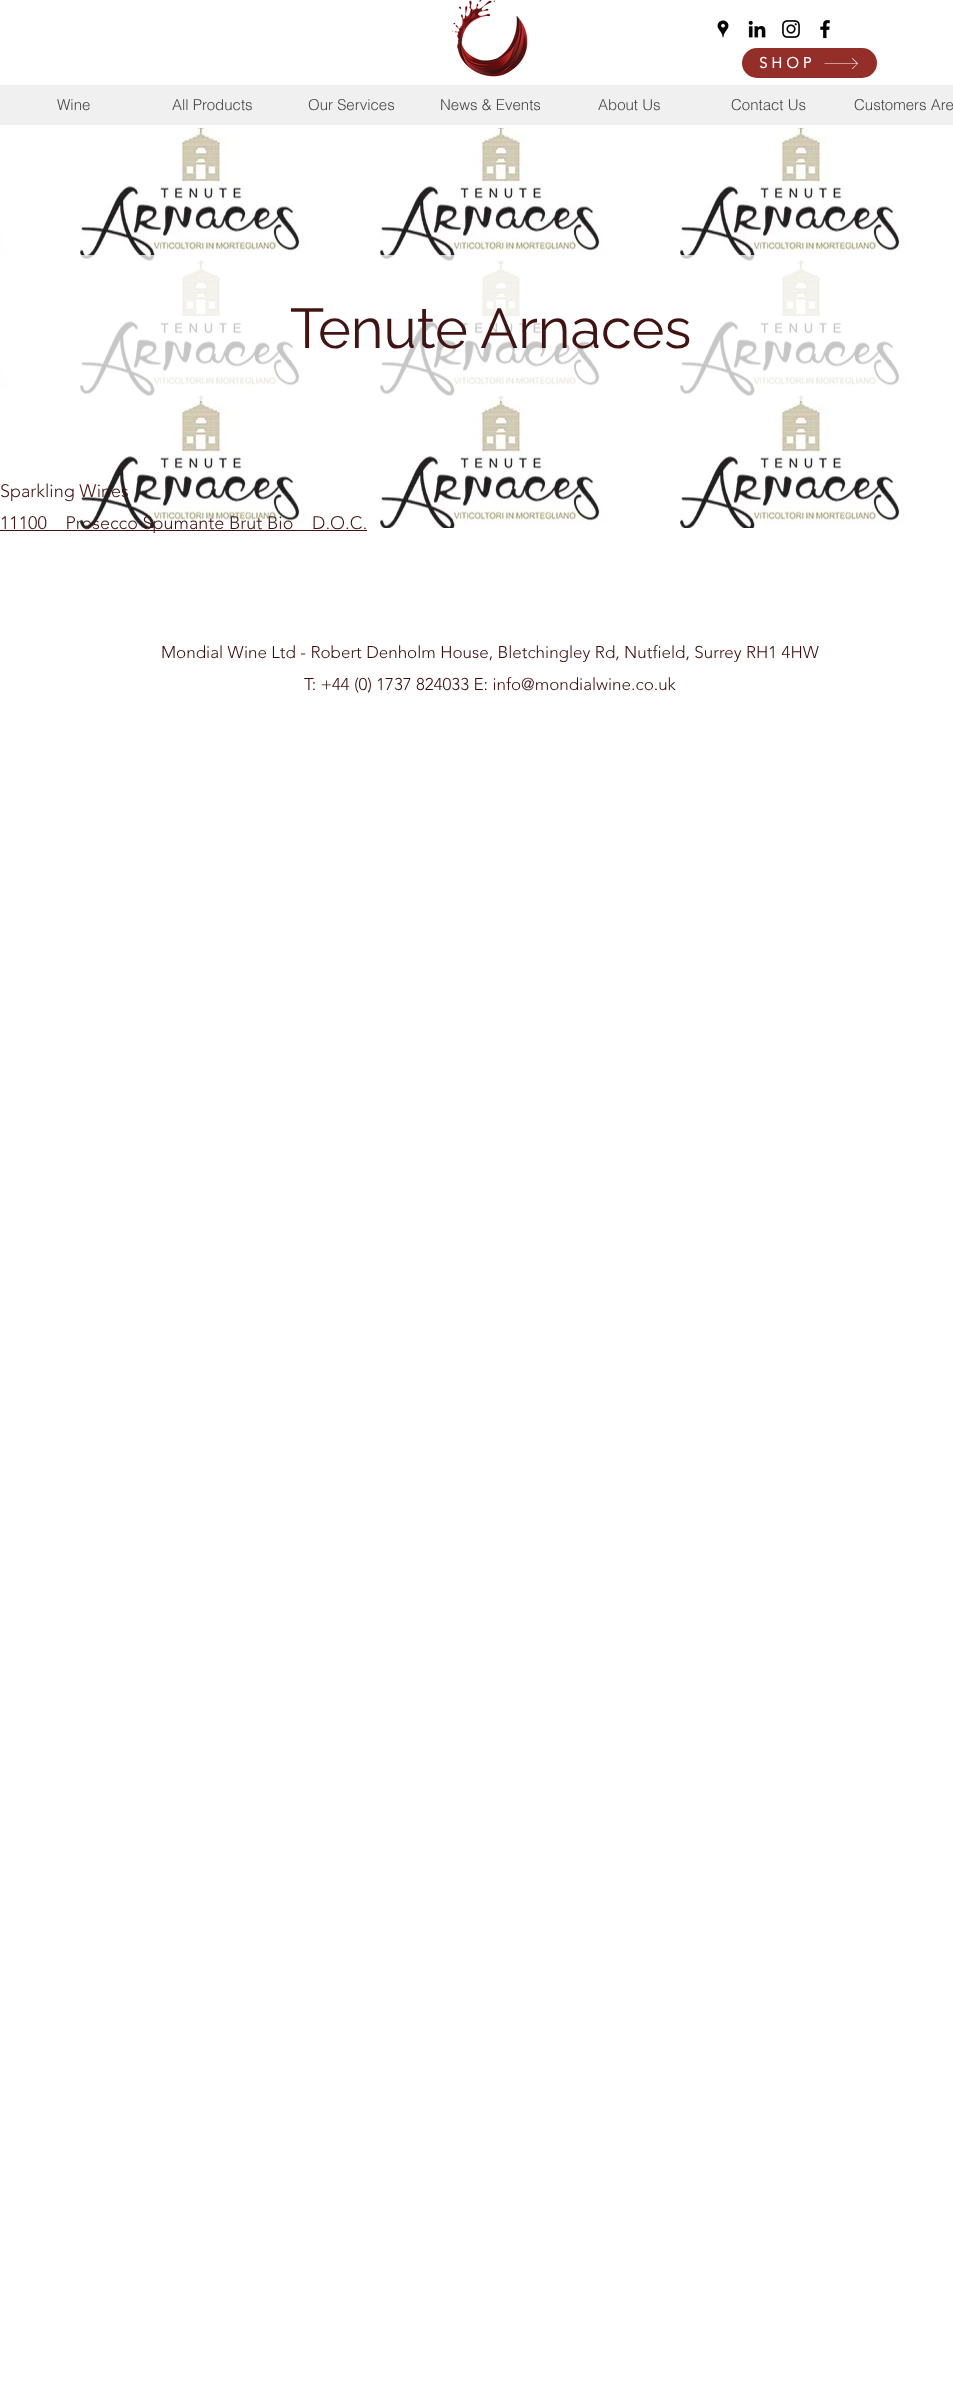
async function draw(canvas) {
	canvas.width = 953;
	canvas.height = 2383;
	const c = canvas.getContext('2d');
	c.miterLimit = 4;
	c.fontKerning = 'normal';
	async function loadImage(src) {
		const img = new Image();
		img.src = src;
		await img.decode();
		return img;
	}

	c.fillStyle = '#fff';
	c.fillRect(0, 0, 953, 2383);
	c.drawImage(await loadImage('img1.png'), 452, 0, 76, 77);
	c.drawImage(await loadImage('img2.png'), 717, 20, 12, 18);
	c.drawImage(await loadImage('img3.png'), 748, 20, 18, 18);
	c.drawImage(await loadImage('img4.png'), 782, 20, 18, 18);
	c.drawImage(await loadImage('img5.png'), 820, 19, 10, 20);
	c.fillStyle = '#942e29';
	c.beginPath();
	c.roundRect(742, 48, 135, 30, 15);
	c.fill();
	c.letterSpacing = '4px';
	c.font = 'bold 15px "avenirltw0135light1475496"';
	c.fillStyle = '#fff';
	c.fillText('SHOP', 759, 68);
	c.beginPath();
	c.moveTo(852.5, 58);
	c.lineTo(852, 58.5);
	c.lineTo(857, 63.5);
	c.lineTo(824.5, 63.5);
	c.lineTo(824.5, 64);
	c.lineTo(857, 64);
	c.lineTo(852, 68.5);
	c.lineTo(852.5, 69);
	c.lineTo(858, 63.5);
	c.closePath();
	c.fill();
	c.fillStyle = '#f0f0f0';
	c.fillRect(0, 85, 953, 40);
	c.letterSpacing = '0px';
	c.font = '300 15px helvetica';
	c.fillStyle = '#444';
	for (const [text, x, y] of [
		['Wine', 57, 110],
		['All Products', 172, 110],
		['Our Services', 308, 110],
		['News & Events', 440, 110],
		['About Us', 598, 110],
		['Contact Us', 731, 110],
		['Customers Are', 854, 110],
	]) {
		c.fillText(text, x, y);
	}
	c.drawImage(await loadImage('img6.png'), 0, 128, 953, 400);
	c.fillStyle = '#ffffffbf';
	c.fillRect(80, 255, 820, 146);
	c.font = '56px Raleway';
	c.fillStyle = '#401412';
	c.fillText('Tenute Arnaces', 290, 348);
	c.font = '300 18px "avenirltw0135light1475496"';
	c.fillText('Sparkling Wines', 0, 497);
	c.fillRect(0, 530, 367, 1);
	c.fillText('11100    Prosecco Spumante Brut Bio    D.O.C.', 0, 529);
	c.font = '300 17px "avenirltw0135light1475496"';
	c.fillStyle = '#3b0b0c';
	c.fillText('Mondial Wine Ltd - Robert Denholm House, Bletchingley Rd, Nutfield, Surrey RH1 4HW', 161, 658);
	c.fillText('T: +44 (0) 1737 824033 E: info@mondialwine.co.uk', 304, 690);
}

draw(document.querySelector('canvas'));
